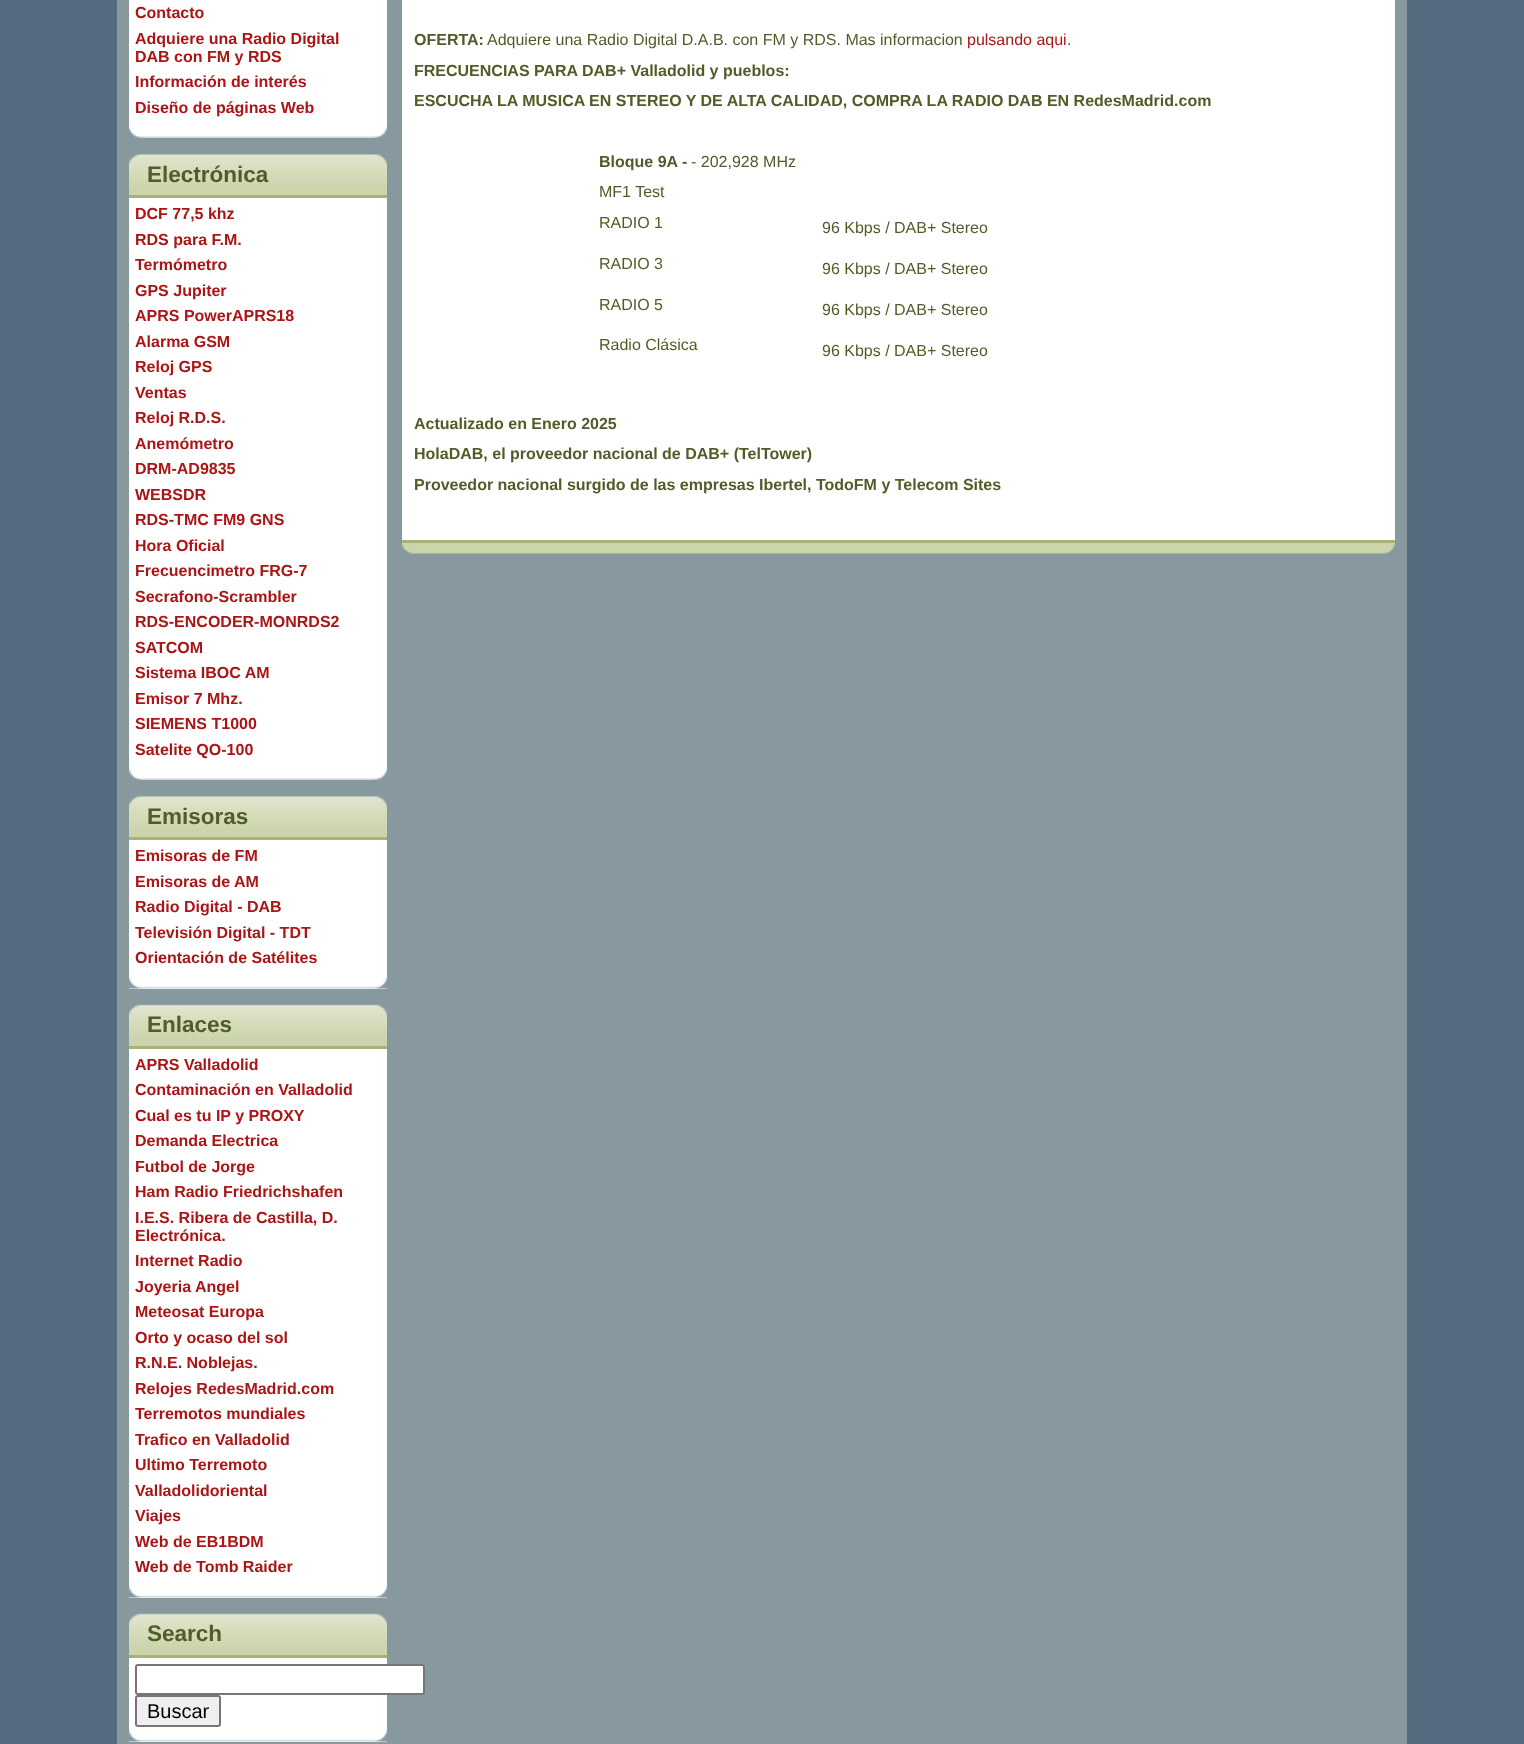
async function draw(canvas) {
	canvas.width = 1524;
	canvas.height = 1744;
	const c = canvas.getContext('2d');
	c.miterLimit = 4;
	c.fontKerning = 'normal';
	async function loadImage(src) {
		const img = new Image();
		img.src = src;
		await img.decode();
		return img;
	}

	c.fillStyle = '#576b80';
	c.fillRect(0, 0, 1524, 1744);
	c.fillStyle = '#87989f';
	c.fillRect(117, 0, 1290, 1744);
	c.fillStyle = '#fff';
	c.fillRect(129, 0, 258, 126);
	c.drawImage(await loadImage('img1.png'), 129, 126, 258, 12);
	c.font = 'bold 16px Liberation Sans';
	c.fillStyle = '#ab1515';
	for (const [text, x, y] of [
		['Contacto', 135, 18],
		['Adquiere una Radio Digital', 135, 44],
		['DAB con FM y RDS', 135, 62],
		['Información de interés', 135, 87],
		['Diseño de páginas Web', 135, 113],
	]) {
		c.fillText(text, x, y);
	}
	c.fillStyle = '#fff';
	c.fillRect(129, 198, 258, 570);
	c.drawImage(await loadImage('img1.png'), 129, 768, 258, 12);
	c.fillStyle = '#cbd4ab';
	c.fillRect(129, 186, 258, 9);
	c.drawImage(await loadImage('img2.png'), 129, 153, 258, 33);
	c.fillStyle = '#a6b278';
	c.fillRect(129, 195, 258, 3);
	c.font = 'bold 22.5px Liberation Sans';
	c.fillStyle = '#505d29';
	c.fillText('Electrónica', 147, 182);
	c.font = 'bold 16px Liberation Sans';
	c.fillStyle = '#ab1515';
	for (const [text, x, y] of [
		['DCF 77,5 khz', 135, 219],
		['RDS para F.M.', 135, 245],
		['Termómetro', 135, 270],
		['GPS Jupiter', 135, 296],
		['APRS PowerAPRS18', 135, 321],
		['Alarma GSM', 135, 347],
		['Reloj GPS', 135, 372],
		['Ventas', 135, 398],
		['Reloj R.D.S.', 135, 423],
		['Anemómetro', 135, 449],
		['DRM-AD9835', 135, 474],
		['WEBSDR', 135, 500],
		['RDS-TMC FM9 GNS', 135, 525],
		['Hora Oficial', 135, 551],
		['Frecuencimetro FRG-7', 135, 576],
		['Secrafono-Scrambler', 135, 602],
		['RDS-ENCODER-MONRDS2', 135, 627],
		['SATCOM', 135, 653],
		['Sistema IBOC AM', 135, 678],
		['Emisor 7 Mhz.', 135, 704],
		['SIEMENS T1000', 135, 729],
		['Satelite QO-100', 135, 755],
	]) {
		c.fillText(text, x, y);
	}
	c.fillStyle = '#fff';
	c.fillRect(129, 840, 258, 149);
	c.drawImage(await loadImage('img3.png'), 129, 976, 258, 13);
	c.fillStyle = '#cbd4ab';
	c.fillRect(129, 828, 258, 9);
	c.drawImage(await loadImage('img2.png'), 129, 795, 258, 33);
	c.fillStyle = '#a6b278';
	c.fillRect(129, 837, 258, 3);
	c.font = 'bold 22.5px Liberation Sans';
	c.fillStyle = '#505d29';
	c.fillText('Emisoras', 147, 824);
	c.font = 'bold 16px Liberation Sans';
	c.fillStyle = '#ab1515';
	for (const [text, x, y] of [
		['Emisoras de FM', 135, 861],
		['Emisoras de AM', 135, 887],
		['Radio Digital - DAB', 135, 912],
		['Televisión Digital - TDT', 135, 938],
		['Orientación de Satélites', 135, 963],
	]) {
		c.fillText(text, x, y);
	}
	c.fillStyle = '#fff';
	c.fillRect(129, 1049, 258, 549);
	c.drawImage(await loadImage('img3.png'), 129, 1585, 258, 13);
	c.fillStyle = '#cbd4ab';
	c.fillRect(129, 1037, 258, 9);
	c.drawImage(await loadImage('img4.png'), 129, 1004, 258, 33);
	c.fillStyle = '#a6b278';
	c.fillRect(129, 1046, 258, 3);
	c.font = 'bold 22.5px Liberation Sans';
	c.fillStyle = '#505d29';
	c.fillText('Enlaces', 147, 1032);
	c.font = 'bold 16px Liberation Sans';
	c.fillStyle = '#ab1515';
	for (const [text, x, y] of [
		['APRS Valladolid', 135, 1070],
		['Contaminación en Valladolid', 135, 1095],
		['Cual es tu IP y PROXY', 135, 1121],
		['Demanda Electrica', 135, 1146],
		['Futbol de Jorge', 135, 1172],
		['Ham Radio Friedrichshafen', 135, 1197],
		['I.E.S. Ribera de Castilla, D.', 135, 1223],
		['Electrónica.', 135, 1241],
		['Internet Radio', 135, 1266],
		['Joyeria Angel', 135, 1292],
		['Meteosat Europa', 135, 1317],
		['Orto y ocaso del sol', 135, 1343],
		['R.N.E. Noblejas.', 135, 1368],
		['Relojes RedesMadrid.com', 135, 1394],
		['Terremotos mundiales', 135, 1419],
		['Trafico en Valladolid', 135, 1445],
		['Ultimo Terremoto', 135, 1470],
		['Valladolidoriental', 135, 1496],
		['Viajes', 135, 1521],
		['Web de EB1BDM', 135, 1547],
		['Web de Tomb Raider', 135, 1572],
	]) {
		c.fillText(text, x, y);
	}
	c.fillStyle = '#fff';
	c.fillRect(129, 1658, 258, 84);
	c.drawImage(await loadImage('img3.png'), 129, 1729, 258, 13);
	c.fillStyle = '#cbd4ab';
	c.fillRect(129, 1646, 258, 9);
	c.drawImage(await loadImage('img4.png'), 129, 1613, 258, 33);
	c.fillStyle = '#a6b278';
	c.fillRect(129, 1655, 258, 3);
	c.font = 'bold 22.5px Liberation Sans';
	c.fillStyle = '#505d29';
	c.fillText('Search', 147, 1641);
	c.fillStyle = '#fff';
	c.beginPath();
	c.roundRect(136, 1665, 288, 29, 2);
	c.fill();
	c.strokeStyle = '#767676';
	c.lineWidth = 2;
	c.stroke();
	c.fillStyle = '#efefef';
	c.beginPath();
	c.roundRect(136, 1696, 84, 30, 2);
	c.fill();
	c.stroke();
	c.font = '20px Liberation Sans';
	c.fillStyle = '#000';
	c.fillText('Buscar', 147, 1718);
	c.fillStyle = '#fff';
	c.fillRect(402, 0, 993, 540);
	c.font = 'bold 16px Liberation Sans';
	c.fillStyle = '#505d29';
	c.fillText('OFERTA:', 414, 45);
	c.font = '16px Liberation Sans';
	c.fillText('Adquiere una Radio Digital D.A.B. con FM y RDS. Mas informacion', 487, 45);
	c.fillStyle = '#ab1515';
	c.fillText('pulsando aqui', 967, 45);
	c.fillStyle = '#505d29';
	c.fillText('.', 1067, 45);
	c.font = 'bold 16px Liberation Sans';
	for (const [text, x, y] of [
		['FRECUENCIAS PARA DAB+ Valladolid y pueblos:', 414, 76],
		['ESCUCHA LA MUSICA EN STEREO Y DE ALTA CALIDAD, COMPRA LA RADIO DAB EN RedesMadrid.com', 414, 106],
		['Bloque 9A -', 599, 167],
	]) {
		c.fillText(text, x, y);
	}
	c.font = '16px Liberation Sans';
	for (const [text, x, y] of [
		['- 202,928 MHz', 691, 167],
		['MF1 Test', 599, 197],
		['RADIO 1', 599, 228],
		['96 Kbps / DAB+ Stereo', 822, 233],
		['RADIO 3', 599, 269],
		['96 Kbps / DAB+ Stereo', 822, 274],
		['RADIO 5', 599, 310],
		['96 Kbps / DAB+ Stereo', 822, 315],
		['Radio Clásica', 599, 350],
		['96 Kbps / DAB+ Stereo', 822, 356],
	]) {
		c.fillText(text, x, y);
	}
	c.font = 'bold 16px Liberation Sans';
	for (const [text, x, y] of [
		['Actualizado en Enero 2025', 414, 429],
		['HolaDAB, el proveedor nacional de DAB+ (TelTower)', 414, 459],
		['Proveedor nacional surgido de las empresas Ibertel, TodoFM y Telecom Sites', 414, 490],
	]) {
		c.fillText(text, x, y);
	}
	c.drawImage(await loadImage('img5.png'), 402, 543, 993, 12);
	c.fillStyle = '#a6b278';
	c.fillRect(402, 540, 993, 3);
}

draw(document.querySelector('canvas'));
